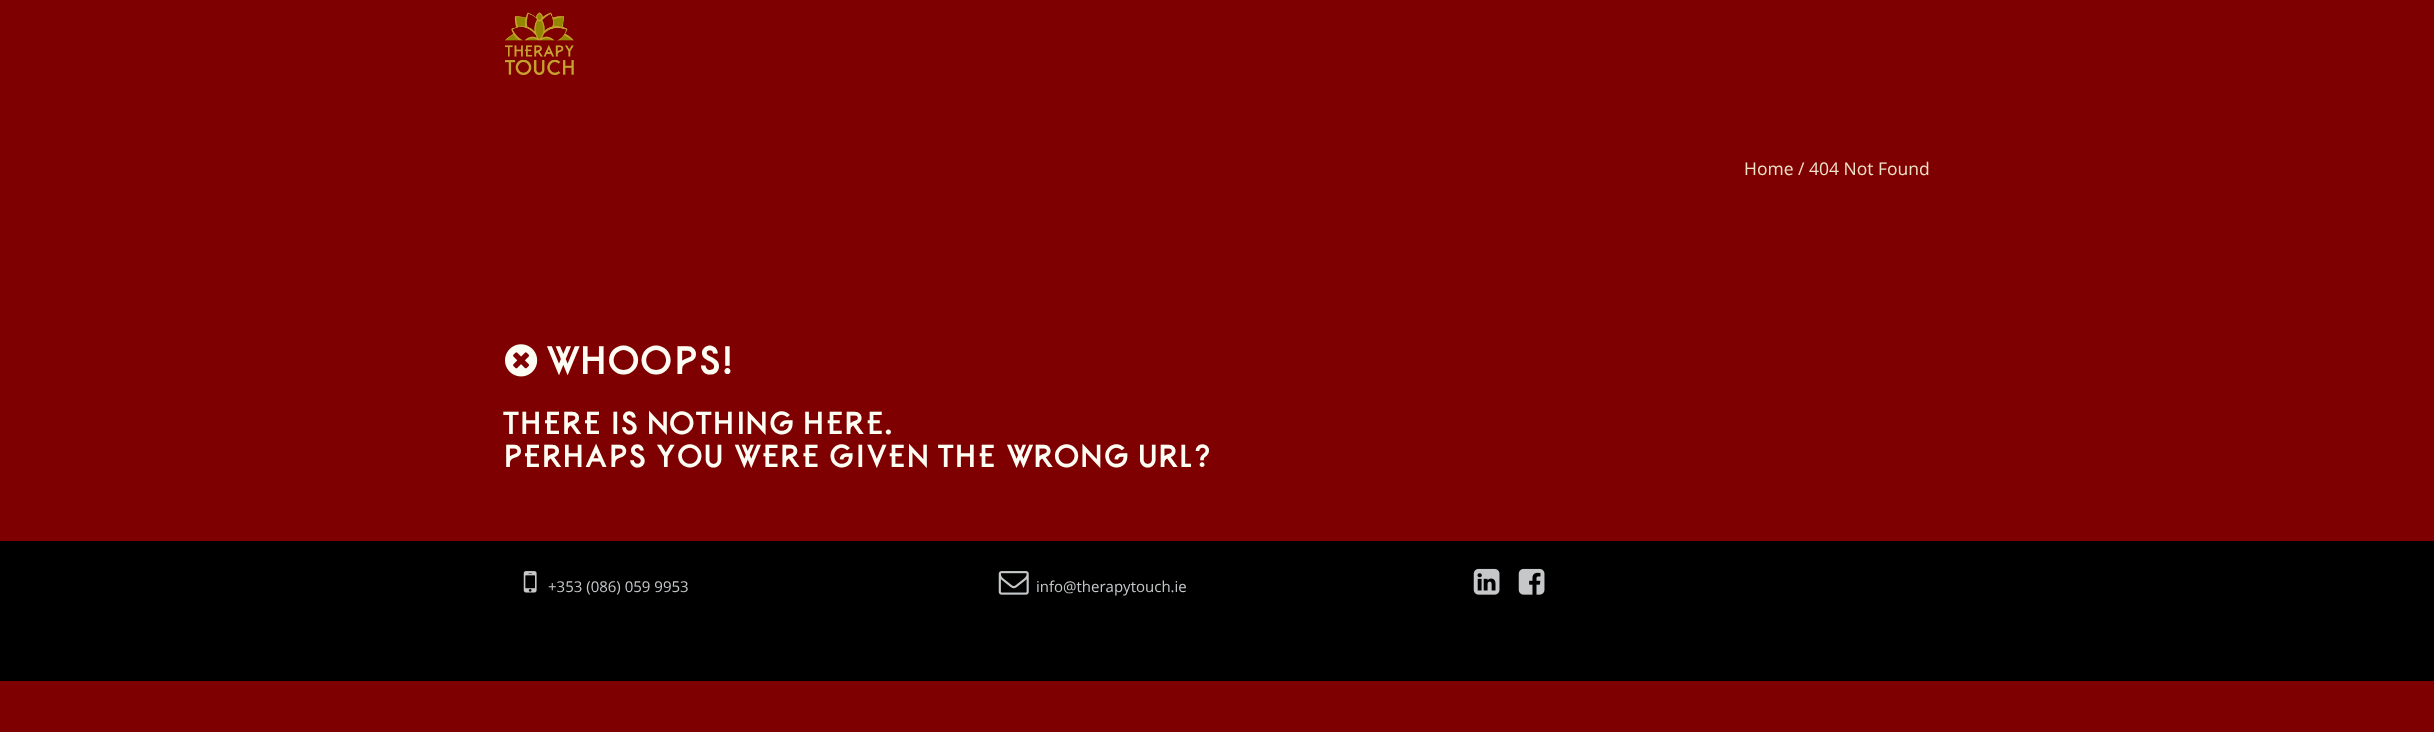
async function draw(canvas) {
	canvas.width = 2434;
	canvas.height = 732;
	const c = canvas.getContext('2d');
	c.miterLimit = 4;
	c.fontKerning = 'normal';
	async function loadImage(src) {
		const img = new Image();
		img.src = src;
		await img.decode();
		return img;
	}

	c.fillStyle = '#7e0001';
	c.fillRect(0, 0, 2434, 732);
	c.drawImage(await loadImage('img1.png'), 505, 12, 69, 63);
	c.font = '17.5px Open Sans';
	c.fillStyle = '#efe3cb';
	c.fillText('Home / 404 Not Found', 1744, 175);
	c.drawImage(await loadImage('img2.png'), 505, 344, 33, 33);
	c.font = 'bold 37.5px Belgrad';
	c.fillStyle = '#fefdf3';
	c.fillText('WHOOPS!', 547, 374);
	c.font = 'bold 30px Belgrad';
	c.fillText('THERE IS NOTHING HERE.', 505, 434);
	c.fillText('PERHAPS YOU WERE GIVEN THE WRONG URL?', 505, 467);
	c.fillStyle = '#000';
	c.fillRect(0, 541, 2434, 140);
	c.drawImage(await loadImage('img3.png'), 523, 571, 14, 22);
	c.font = '15px Open Sans';
	c.fillStyle = '#c5c7c9';
	c.fillText('+353 (086) 059 9953', 548, 592);
	c.drawImage(await loadImage('img4.png'), 998, 571, 31, 24);
	c.fillText('info@therapytouch.ie', 1036, 592);
	c.drawImage(await loadImage('img5.png'), 1473, 568, 27, 27);
	c.drawImage(await loadImage('img6.png'), 1518, 568, 27, 27);
}

draw(document.querySelector('canvas'));
